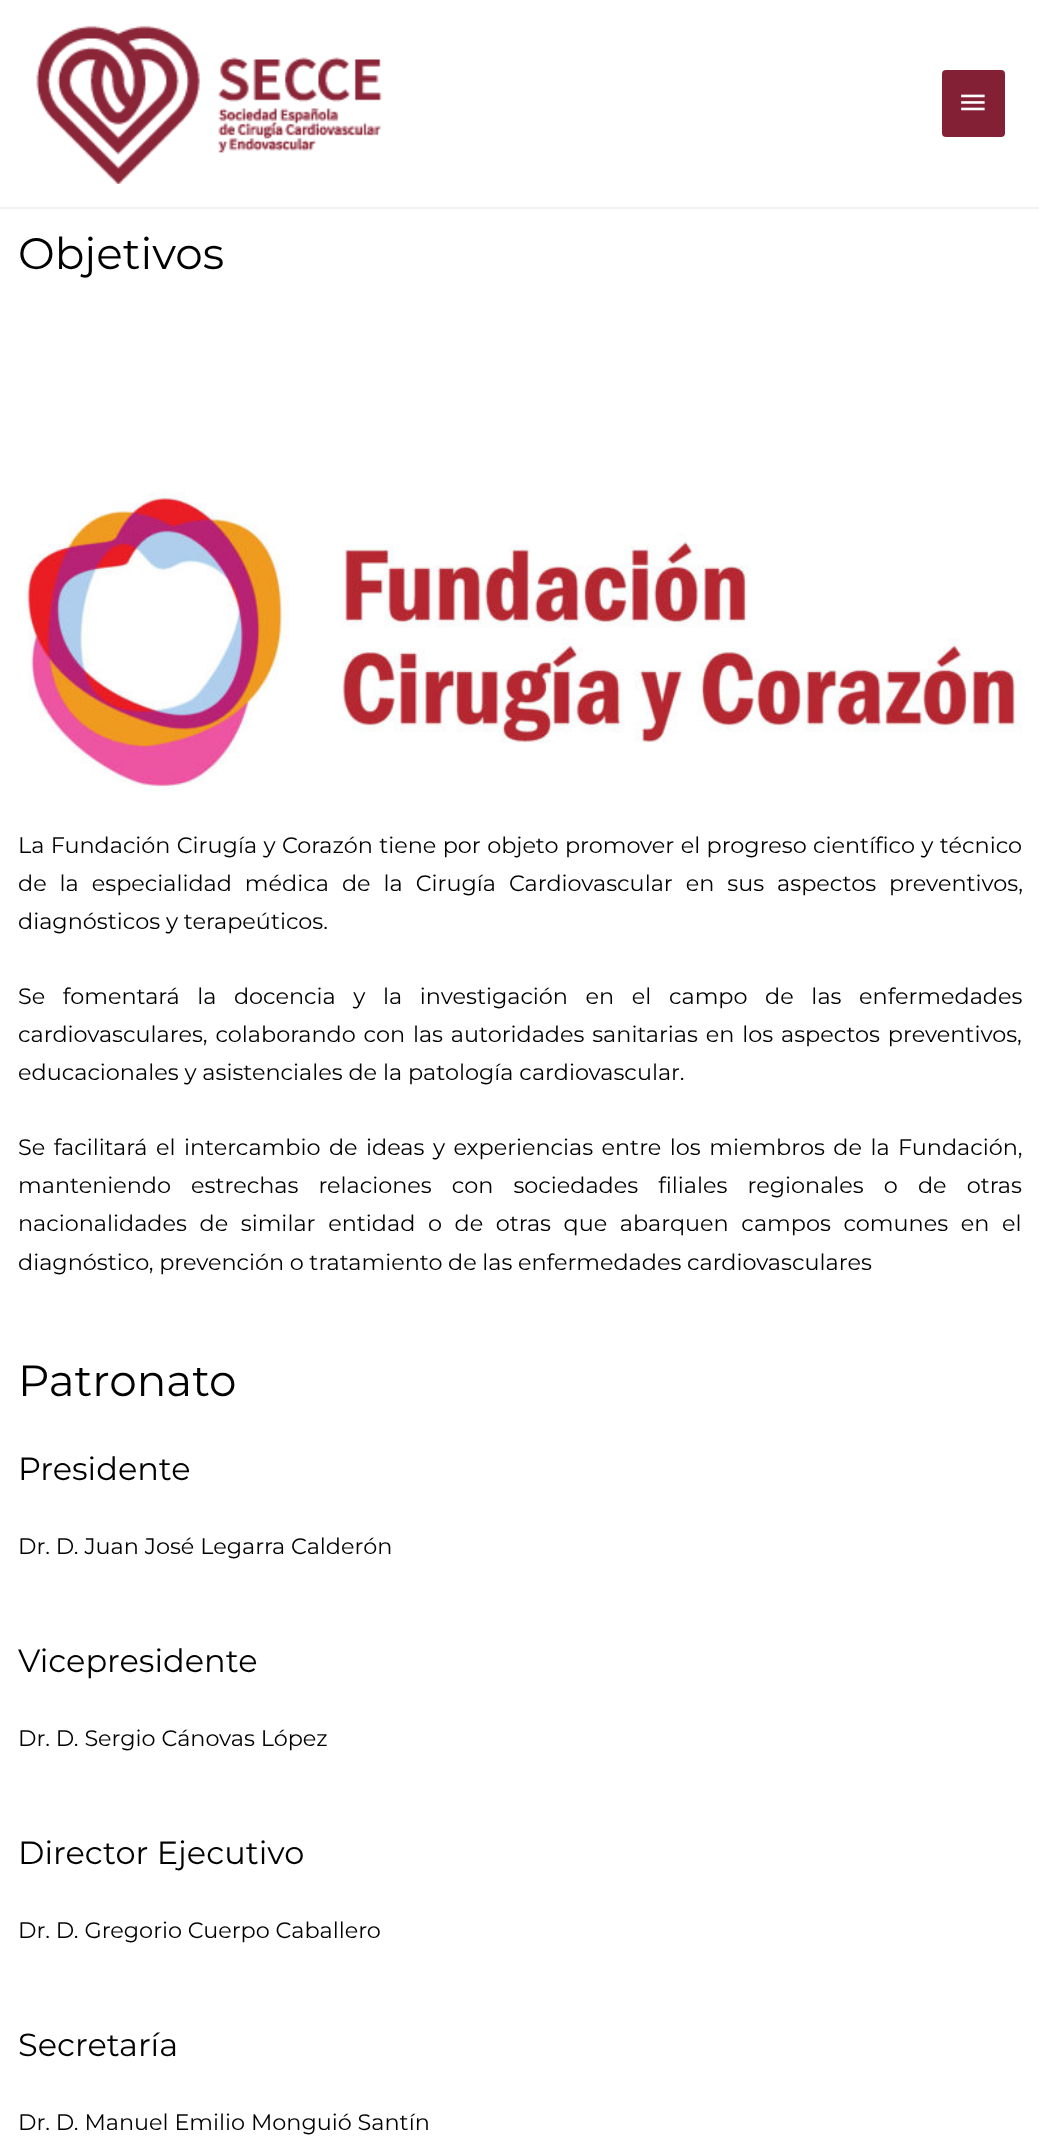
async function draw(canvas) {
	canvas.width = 1039;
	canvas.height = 2139;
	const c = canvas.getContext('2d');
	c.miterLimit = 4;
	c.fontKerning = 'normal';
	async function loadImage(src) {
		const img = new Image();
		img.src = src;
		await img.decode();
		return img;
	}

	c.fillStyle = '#fff';
	c.fillRect(0, 0, 1039, 2139);
	c.fillStyle = '#f2f2f2';
	c.fillRect(0, 207, 1039, 2);
	c.drawImage(await loadImage('img1.png'), 36, 25, 346, 159);
	c.fillStyle = '#842036';
	c.beginPath();
	c.roundRect(942, 70, 63, 67, 4);
	c.fill();
	c.drawImage(await loadImage('img2.png'), 961, 94, 24, 17);
	c.font = '43.75px Montserrat';
	c.fillStyle = '#000';
	c.fillText('Objetivos', 18, 269);
	c.drawImage(await loadImage('img3.png'), 25, 491, 997, 300);
	c.wordSpacing = '0.5px';
	c.font = '22.35px Montserrat';
	c.fillText('La Fundación Cirugía y Corazón tiene por objeto promover el progreso científico y técnico', 18, 853);
	c.wordSpacing = '7.1px';
	c.fillText('de la especialidad médica de la Cirugía Cardiovascular en sus aspectos preventivos,', 18, 891);
	c.wordSpacing = '0px';
	c.fillText('diagnósticos y terapeúticos.', 18, 929);
	c.wordSpacing = '11.75px';
	c.fillText('Se fomentará la docencia y la investigación en el campo de las enfermedades', 18, 1004);
	c.wordSpacing = '2px';
	c.fillText('cardiovasculares, colaborando con las autoridades sanitarias en los aspectos preventivos,', 18, 1042);
	c.wordSpacing = '0px';
	c.fillText('educacionales y asistenciales de la patología cardiovascular.', 18, 1080);
	c.wordSpacing = '2.6px';
	c.fillText('Se facilitará el intercambio de ideas y experiencias entre los miembros de la Fundación,', 18, 1155);
	c.wordSpacing = '14.25px';
	c.fillText('manteniendo estrechas relaciones con sociedades filiales regionales o de otras', 18, 1193);
	c.wordSpacing = '6.75px';
	c.fillText('nacionalidades de similar entidad o de otras que abarquen campos comunes en el', 18, 1231);
	c.wordSpacing = '-0.25px';
	c.fillText('diagnóstico, prevención o tratamiento de las enfermedades cardiovasculares', 18, 1270);
	c.wordSpacing = '0px';
	c.font = '43.75px Montserrat';
	c.fillText('Patronato', 18, 1396);
	c.font = '32px Montserrat';
	c.fillText('Presidente', 18, 1480);
	c.font = '22.35px Montserrat';
	c.fillText('Dr. D. Juan José Legarra Calderón', 18, 1554);
	c.font = '32px Montserrat';
	c.fillText('Vicepresidente', 18, 1672);
	c.font = '22.35px Montserrat';
	c.fillText('Dr. D. Sergio Cánovas López', 18, 1746);
	c.font = '32px Montserrat';
	c.fillText('Director Ejecutivo', 18, 1864);
	c.font = '22.35px Montserrat';
	c.fillText('Dr. D. Gregorio Cuerpo Caballero', 18, 1938);
	c.font = '32px Montserrat';
	c.fillText('Secretaría', 18, 2056);
	c.font = '22.35px Montserrat';
	c.fillText('Dr. D. Manuel Emilio Monguió Santín', 18, 2130);
}

draw(document.querySelector('canvas'));
